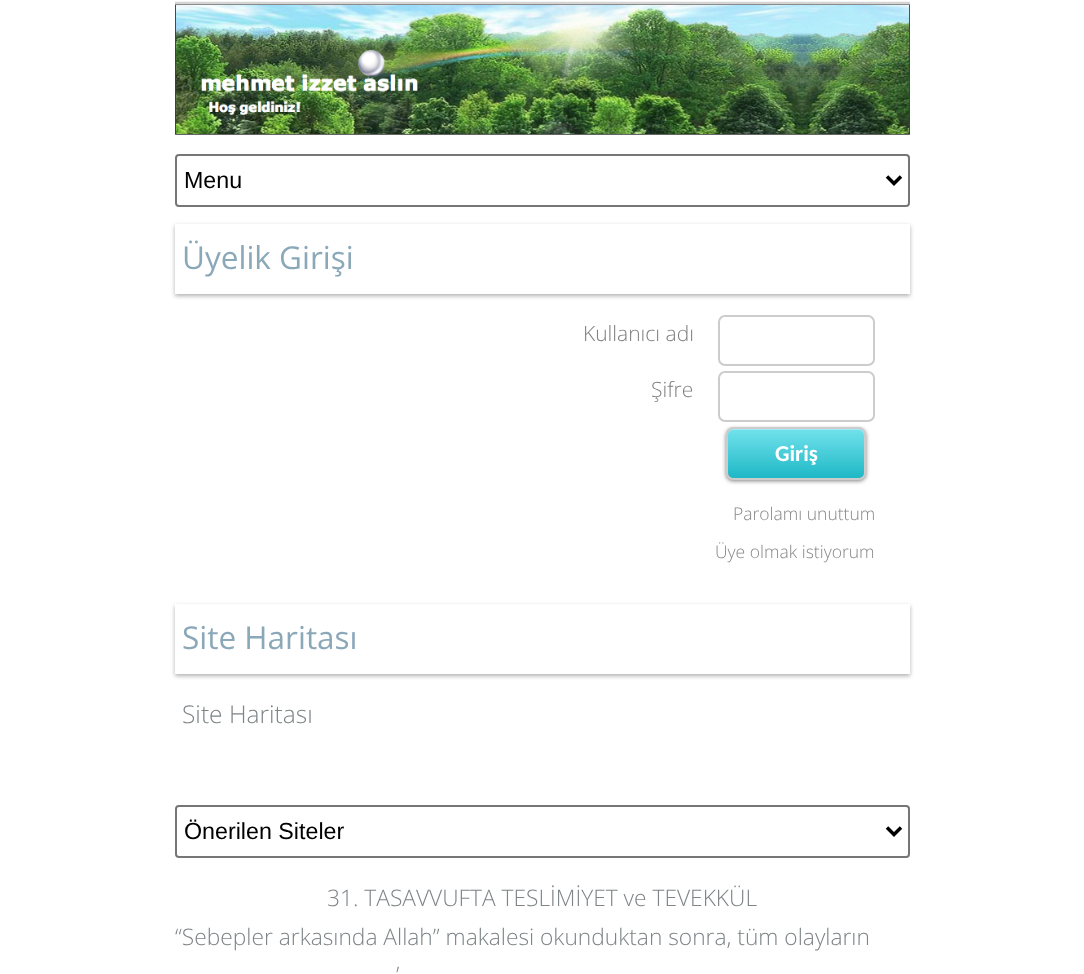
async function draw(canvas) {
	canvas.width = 1084;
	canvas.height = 974;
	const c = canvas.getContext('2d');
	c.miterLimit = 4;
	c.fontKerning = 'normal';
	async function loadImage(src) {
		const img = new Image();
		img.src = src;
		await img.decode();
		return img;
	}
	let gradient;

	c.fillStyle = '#fff';
	c.fillRect(0, 0, 1084, 974);
	c.drawImage(await loadImage('img1.png'), 175, 1, 735, 134);
	c.beginPath();
	c.roundRect(176, 155, 733, 51, 3);
	c.strokeStyle = '#767676';
	c.lineWidth = 2;
	c.stroke();
	c.beginPath();
	c.moveTo(887, 176.5);
	c.lineTo(894, 183.5);
	c.lineTo(901, 176.5);
	c.strokeStyle = '#000';
	c.lineWidth = 3.5;
	c.stroke();
	c.font = '23.25px Liberation Sans';
	c.fillStyle = '#000';
	c.fillText('Menu', 184, 188);
	c.save();
	c.beginPath();
	c.moveTo(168, 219);
	c.lineTo(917, 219);
	c.lineTo(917, 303);
	c.lineTo(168, 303);
	c.closePath();
	c.moveTo(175, 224);
	c.lineTo(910, 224);
	c.lineTo(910, 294);
	c.lineTo(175, 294);
	c.closePath();
	c.clip('evenodd');
	c.fillStyle = '#64646480';
	c.filter = 'blur(2px)';
	c.beginPath();
	c.rect(175, 226, 735, 70);
	c.fill();
	c.filter = 'none';
	c.restore();
	c.font = '31.5px Open Sans';
	c.fillStyle = '#8ba8b9';
	c.fillText('Üyelik Girişi', 182, 269);
	c.font = '300 21px Open Sans';
	c.fillStyle = '#7f7f7f';
	c.fillText('Kullanıcı adı', 583, 341);
	c.beginPath();
	c.roundRect(719, 316, 155, 49, 6);
	c.strokeStyle = '#ccc';
	c.lineWidth = 2;
	c.stroke();
	c.fillText('Şifre', 651, 397);
	c.beginPath();
	c.roundRect(719, 372, 155, 49, 6);
	c.stroke();
	c.fillStyle = '#00000080';
	c.filter = 'blur(2px)';
	c.beginPath();
	c.roundRect(726, 429, 140, 52, 7);
	c.fill();
	c.filter = 'none';
	gradient = c.createLinearGradient(796, 429, 796, 478);
	gradient.addColorStop(0, '#72e2ec');
	gradient.addColorStop(1, '#1eb8c6');
	c.fillStyle = gradient;
	c.beginPath();
	c.roundRect(728, 429, 137, 49, 5);
	c.fill();
	c.fillStyle = '#ffffff4d';
	c.beginPath();
	c.moveTo(733, 430);
	c.lineTo(859, 430);
	c.bezierCurveTo(862, 430, 864, 433, 864, 436);
	c.lineTo(864, 474);
	c.lineTo(864, 477);
	c.bezierCurveTo(864, 476, 865, 474, 865, 473);
	c.lineTo(865, 434);
	c.bezierCurveTo(865, 431, 863, 429, 860, 429);
	c.lineTo(733, 429);
	c.bezierCurveTo(730, 429, 728, 431, 728, 434);
	c.lineTo(728, 436);
	c.bezierCurveTo(728, 433, 730, 430, 733, 430);
	c.closePath();
	c.fill();
	c.beginPath();
	c.roundRect(727, 428, 138, 51, 6);
	c.stroke();
	c.font = 'bold 22.75px Carlito';
	c.fillStyle = '#fff';
	c.fillText('Giriş', 775, 461);
	c.font = '300 17.5px Open Sans';
	c.fillStyle = '#888';
	c.fillText('Parolamı unuttum', 733, 520);
	c.fillText('Üye olmak istiyorum', 715, 558);
	c.fillStyle = '#64646480';
	c.filter = 'blur(2px)';
	c.beginPath();
	c.rect(175, 606, 735, 70);
	c.fill();
	c.filter = 'none';
	c.fillStyle = '#fff';
	c.fillRect(175, 604, 735, 70);
	c.font = '31.5px Open Sans';
	c.fillStyle = '#8ba8b9';
	c.fillText('Site Haritası', 182, 649);
	c.font = '300 24.5px Open Sans';
	c.fillStyle = '#7e8487';
	c.fillText('Site Haritası', 182, 723);
	c.beginPath();
	c.roundRect(176, 806, 733, 51, 3);
	c.strokeStyle = '#767676';
	c.stroke();
	c.beginPath();
	c.moveTo(887, 827.5);
	c.lineTo(894, 834.5);
	c.lineTo(901, 827.5);
	c.strokeStyle = '#000';
	c.lineWidth = 3.5;
	c.stroke();
	c.font = '23.25px Liberation Sans';
	c.fillStyle = '#000';
	c.fillText('Önerilen Siteler', 184, 839);
	c.font = '300 22.75px Open Sans';
	c.fillStyle = '#7e8487';
	for (const [text, x, y] of [
		['31. TASAVVUFTA TESLİMİYET ve TEVEKKÜL', 327, 906],
		['“Sebepler arkasında Allah” makalesi okunduktan sonra, tüm olayların', 175, 945],
		['’', 396, 983],
	]) {
		c.fillText(text, x, y);
	}
}

draw(document.querySelector('canvas'));
